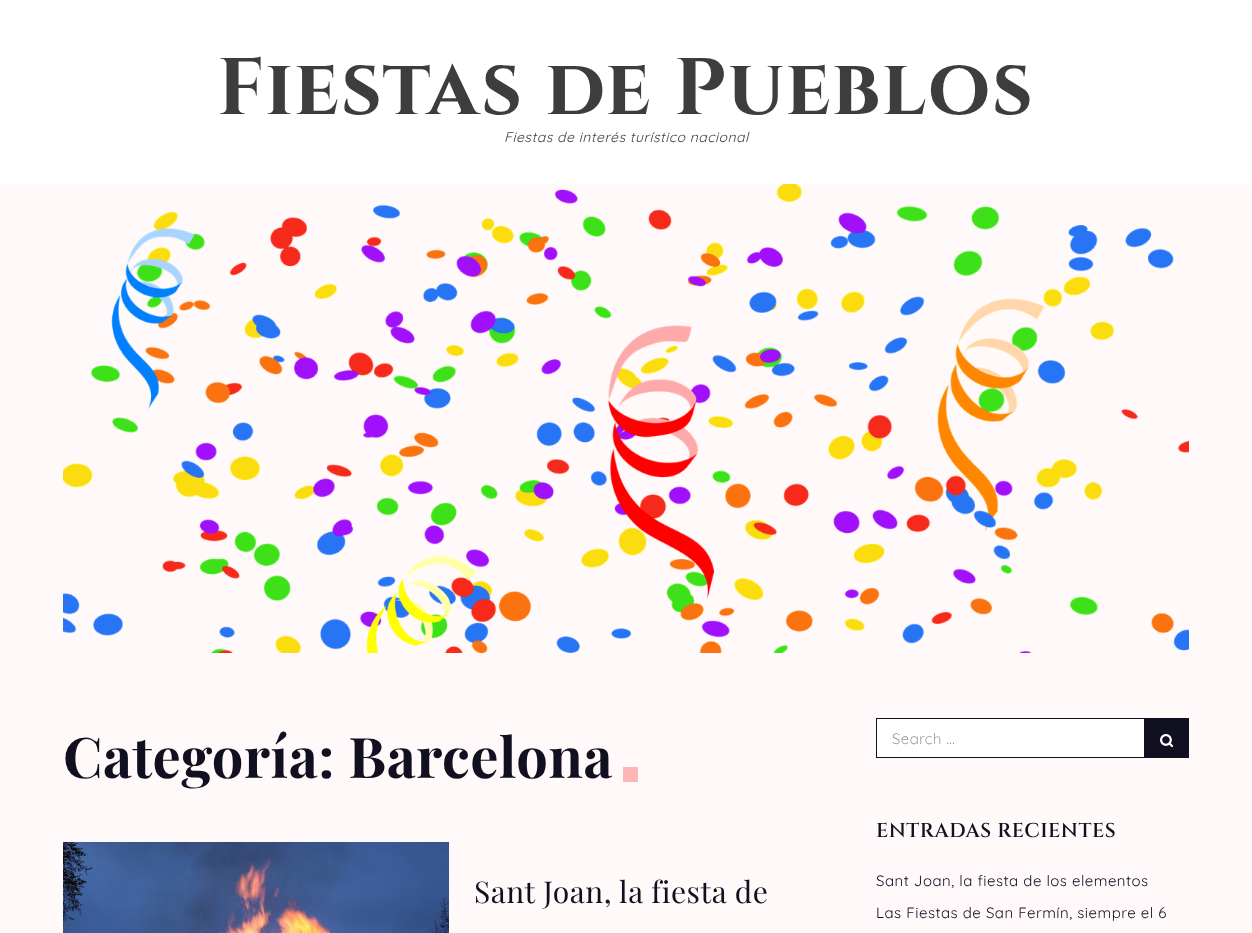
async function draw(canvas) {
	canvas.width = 1252;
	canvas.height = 933;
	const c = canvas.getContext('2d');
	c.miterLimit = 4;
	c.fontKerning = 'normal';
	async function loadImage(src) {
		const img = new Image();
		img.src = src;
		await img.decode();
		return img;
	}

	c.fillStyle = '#fff9f9';
	c.fillRect(0, 0, 1252, 933);
	c.fillStyle = '#fff';
	c.fillRect(0, 0, 1252, 184);
	c.letterSpacing = '1.5px';
	c.font = 'bold 80px Cinzel';
	c.fillStyle = '#3d3d3d';
	c.fillText('Fiestas de Pueblos', 217, 114);
	c.letterSpacing = '0.5px';
	c.font = 'italic 14px Quicksand';
	c.fillText('Fiestas de interés turístico nacional', 504, 142);
	c.drawImage(await loadImage('img1.png'), 63, 184, 1126, 469);
	c.font = 'bold 56px Playfair Display';
	c.fillStyle = '#101020';
	c.fillText('Categoría: Barcelona', 63, 778);
	c.fillStyle = '#ffb5b5';
	c.fillRect(623, 767, 15, 15);
	c.drawImage(await loadImage('img2.png'), 63, 842, 386, 91);
	c.font = '30px Playfair Display';
	c.fillStyle = '#101020';
	c.fillText('Sant Joan, la fiesta de', 474, 903);
	c.fillStyle = '#fff';
	c.fillRect(877, 719, 267, 38);
	c.strokeStyle = '#101020';
	c.strokeRect(876.5, 718.5, 312, 39);
	c.font = '300 15px Quicksand';
	c.fillStyle = '#757575';
	c.fillText('Search …', 892, 744);
	c.fillStyle = '#101020';
	c.fillRect(1144, 719, 44, 38);
	c.drawImage(await loadImage('img3.png'), 1160, 734, 13, 13);
	c.font = '600 20px Cinzel';
	c.fillText('ENTRADAS RECIENTES', 876, 837);
	c.font = '15px Quicksand';
	c.fillText('Sant Joan, la fiesta de los elementos', 876, 886);
	c.fillText('Las Fiestas de San Fermín, siempre el 6', 876, 918);
}

draw(document.querySelector('canvas'));
